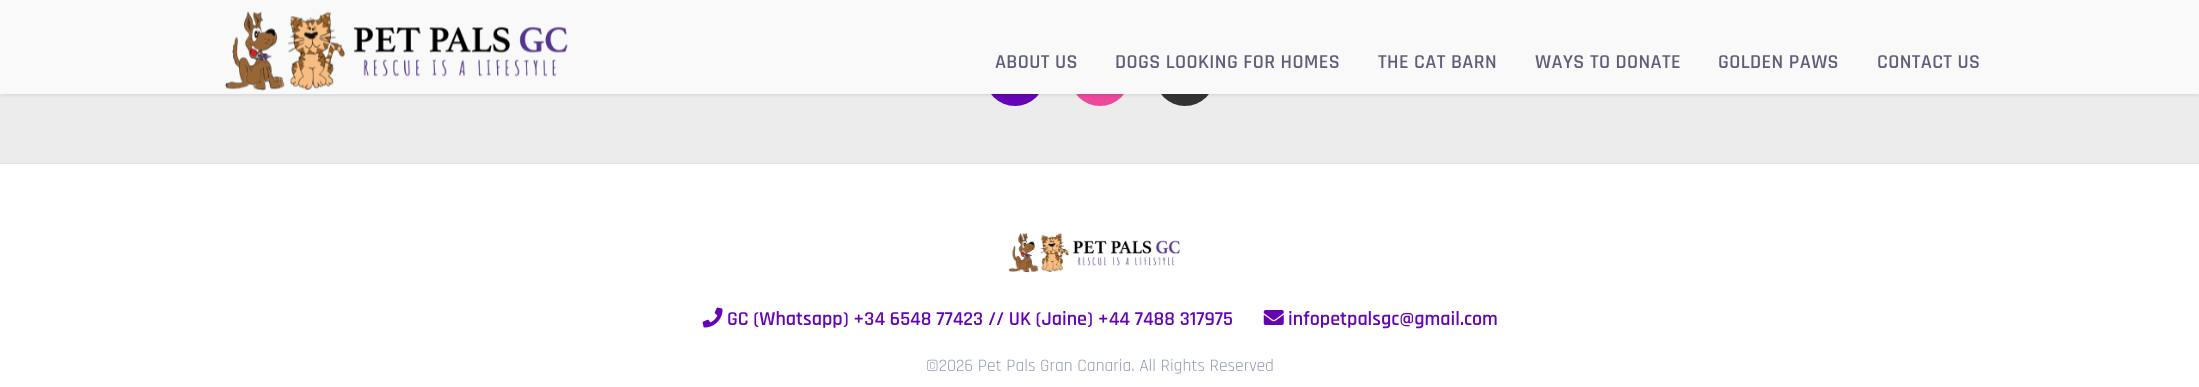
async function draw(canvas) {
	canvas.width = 2199;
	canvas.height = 387;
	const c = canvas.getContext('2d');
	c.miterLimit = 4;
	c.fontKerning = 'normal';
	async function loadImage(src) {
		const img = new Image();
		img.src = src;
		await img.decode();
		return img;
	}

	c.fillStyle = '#fff';
	c.fillRect(0, 0, 2199, 387);
	c.fillStyle = '#ececec';
	c.fillRect(0, 94, 2199, 69);
	c.fillStyle = '#6504b5';
	c.beginPath();
	c.arc(1015, 76, 30, 0, 2 * Math.PI);
	c.fill();
	c.fillStyle = '#ed499d';
	c.beginPath();
	c.arc(1100, 76, 30, 0, 2 * Math.PI);
	c.fill();
	c.fillStyle = '#333';
	c.beginPath();
	c.arc(1185, 76, 30, 0, 2 * Math.PI);
	c.fill();
	c.fillStyle = '#00000026';
	c.filter = 'blur(2.5px)';
	c.beginPath();
	c.rect(0, -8, 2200, 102);
	c.fill();
	c.filter = 'none';
	c.fillStyle = '#f9f9f9';
	c.fillRect(0, 0, 2199, 94);
	c.drawImage(await loadImage('img1.png'), 225, 11, 343, 80);
	c.letterSpacing = '0.4px';
	c.font = '600 20px Rajdhani';
	c.fillStyle = '#5f5f78';
	for (const [text, x, y] of [
		['ABOUT US', 995, 68],
		['DOGS LOOKING FOR HOMES', 1115, 68],
		['THE CAT BARN', 1378, 68],
		['WAYS TO DONATE', 1535, 68],
		['GOLDEN PAWS', 1718, 68],
		['CONTACT US', 1877, 68],
	]) {
		c.fillText(text, x, y);
	}
	c.fillStyle = '#dfdfdf';
	c.fillRect(0, 163, 2199, 1);
	c.drawImage(await loadImage('img2.png'), 1008, 233, 172, 40);
	c.drawImage(await loadImage('img3.png'), 702, 307, 21, 21);
	c.letterSpacing = '0px';
	c.fillStyle = '#6504b5';
	c.fillText('GC (Whatsapp) +34 6548 77423 // UK (Jaine) +44 7488 317975', 727, 325);
	c.drawImage(await loadImage('img4.png'), 1263, 310, 21, 15);
	c.fillText('infopetpalsgc@gmail.com', 1288, 325);
	c.font = '17.5px Rajdhani';
	c.fillStyle = '#949bb8';
	c.fillText('©2026 Pet Pals Gran Canaria. All Rights Reserved', 926, 371);
}

draw(document.querySelector('canvas'));
